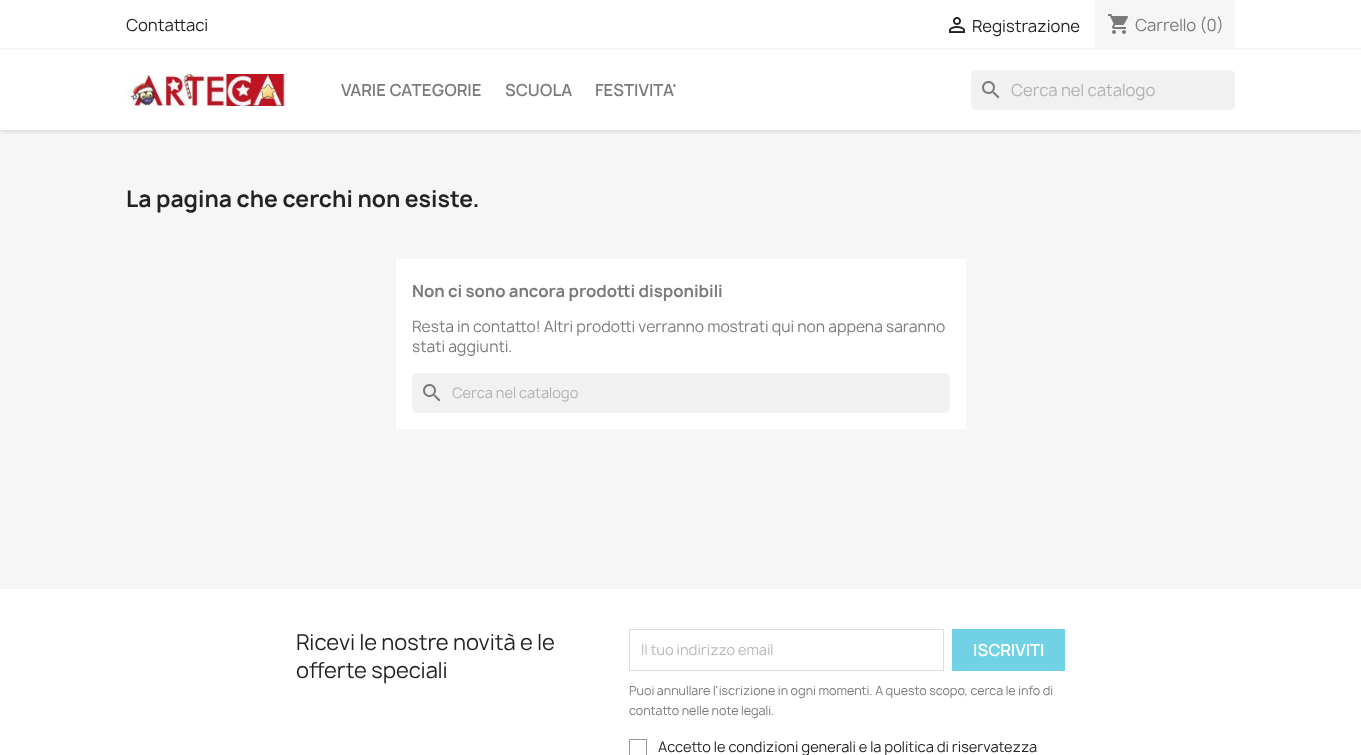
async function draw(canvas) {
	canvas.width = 1361;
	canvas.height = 755;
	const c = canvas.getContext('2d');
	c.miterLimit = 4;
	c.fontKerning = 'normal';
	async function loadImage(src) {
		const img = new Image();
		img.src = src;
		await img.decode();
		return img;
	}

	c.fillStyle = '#fff';
	c.fillRect(0, 0, 1361, 755);
	c.fillStyle = '#f6f6f6';
	c.fillRect(0, 130, 1361, 459);
	c.save();
	c.beginPath();
	c.rect(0, 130, 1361, 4);
	c.clip();
	c.fillStyle = '#0000001c';
	c.filter = 'blur(2.5px)';
	c.beginPath();
	c.rect(0, 2, 1361, 130);
	c.fill();
	c.filter = 'none';
	c.restore();
	c.fillRect(0, 48, 1361, 2);
	c.font = '16px Manrope';
	c.fillStyle = '#232323';
	c.fillText('Contattaci', 126, 31);
	c.drawImage(await loadImage('img1.png'), 949, 17, 16, 16);
	c.fillText('Registrazione', 972, 32);
	c.fillStyle = '#f6f6f6';
	c.fillRect(1095, 0, 140, 48);
	c.drawImage(await loadImage('img2.png'), 1108, 14, 20, 20);
	c.fillStyle = '#7a7a7a';
	c.fillText('Carrello (0)', 1135, 31);
	c.drawImage(await loadImage('img3.png'), 126, 74, 160, 32);
	c.font = '600 16px Manrope';
	for (const [text, x, y] of [
		['VARIE CATEGORIE', 341, 96],
		['SCUOLA', 505, 96],
		['FESTIVITA\'', 595, 96],
	]) {
		c.fillText(text, x, y);
	}
	c.fillStyle = '#f1f1f1';
	c.beginPath();
	c.roundRect(971, 70, 264, 40, 5);
	c.fill();
	c.drawImage(await loadImage('img4.png'), 982, 81, 18, 18);
	c.font = '16px Manrope';
	c.fillStyle = '#b1b1b1';
	c.fillText('Cerca nel catalogo', 1011, 96);
	c.font = 'bold 22px Manrope';
	c.fillStyle = '#232323';
	c.fillText('La pagina che cerchi non esiste.', 126, 207);
	c.fillStyle = '#fff';
	c.fillRect(396, 259, 570, 170);
	c.font = 'bold 16px Manrope';
	c.fillStyle = '#7a7a7a';
	c.fillText('Non ci sono ancora prodotti disponibili', 412, 297);
	c.font = '15px Manrope';
	c.fillText('Resta in contatto! Altri prodotti verranno mostrati qui non appena saranno', 412, 332);
	c.fillText('stati aggiunti.', 412, 352);
	c.fillStyle = '#f1f1f1';
	c.beginPath();
	c.roundRect(412, 373, 538, 40, 5);
	c.fill();
	c.drawImage(await loadImage('img4.png'), 423, 384, 18, 18);
	c.font = '14px Manrope';
	c.fillStyle = '#b1b1b1';
	c.fillText('Cerca nel catalogo', 452, 398);
	c.font = '21px Manrope';
	c.fillStyle = '#232323';
	c.fillText('Ricevi le nostre novità e le', 296, 650);
	c.fillText('offerte speciali', 296, 678);
	c.strokeStyle = '#ddd';
	c.strokeRect(629.5, 629.5, 314, 41);
	c.font = '14px Manrope';
	c.fillStyle = '#b7b7b7';
	c.fillText('Il tuo indirizzo email', 641, 655);
	c.fillStyle = '#71d2e5';
	c.fillRect(952, 629, 113, 42);
	c.font = '600 16px Manrope';
	c.fillStyle = '#fff';
	c.fillText('ISCRIVITI', 973, 656);
	c.font = '12px Manrope';
	c.fillStyle = '#7a7a7a';
	c.fillText('Puoi annullare l\'iscrizione in ogni momenti. A questo scopo, cerca le info di', 629, 695);
	c.fillText('contatto nelle note legali.', 629, 715);
	c.strokeStyle = '#979797';
	c.strokeRect(629.5, 739.5, 17, 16);
	c.font = '14px Manrope';
	c.fillStyle = '#232323';
	c.fillText('Accetto le condizioni generali e la politica di riservatezza', 658, 752);
}

draw(document.querySelector('canvas'));
